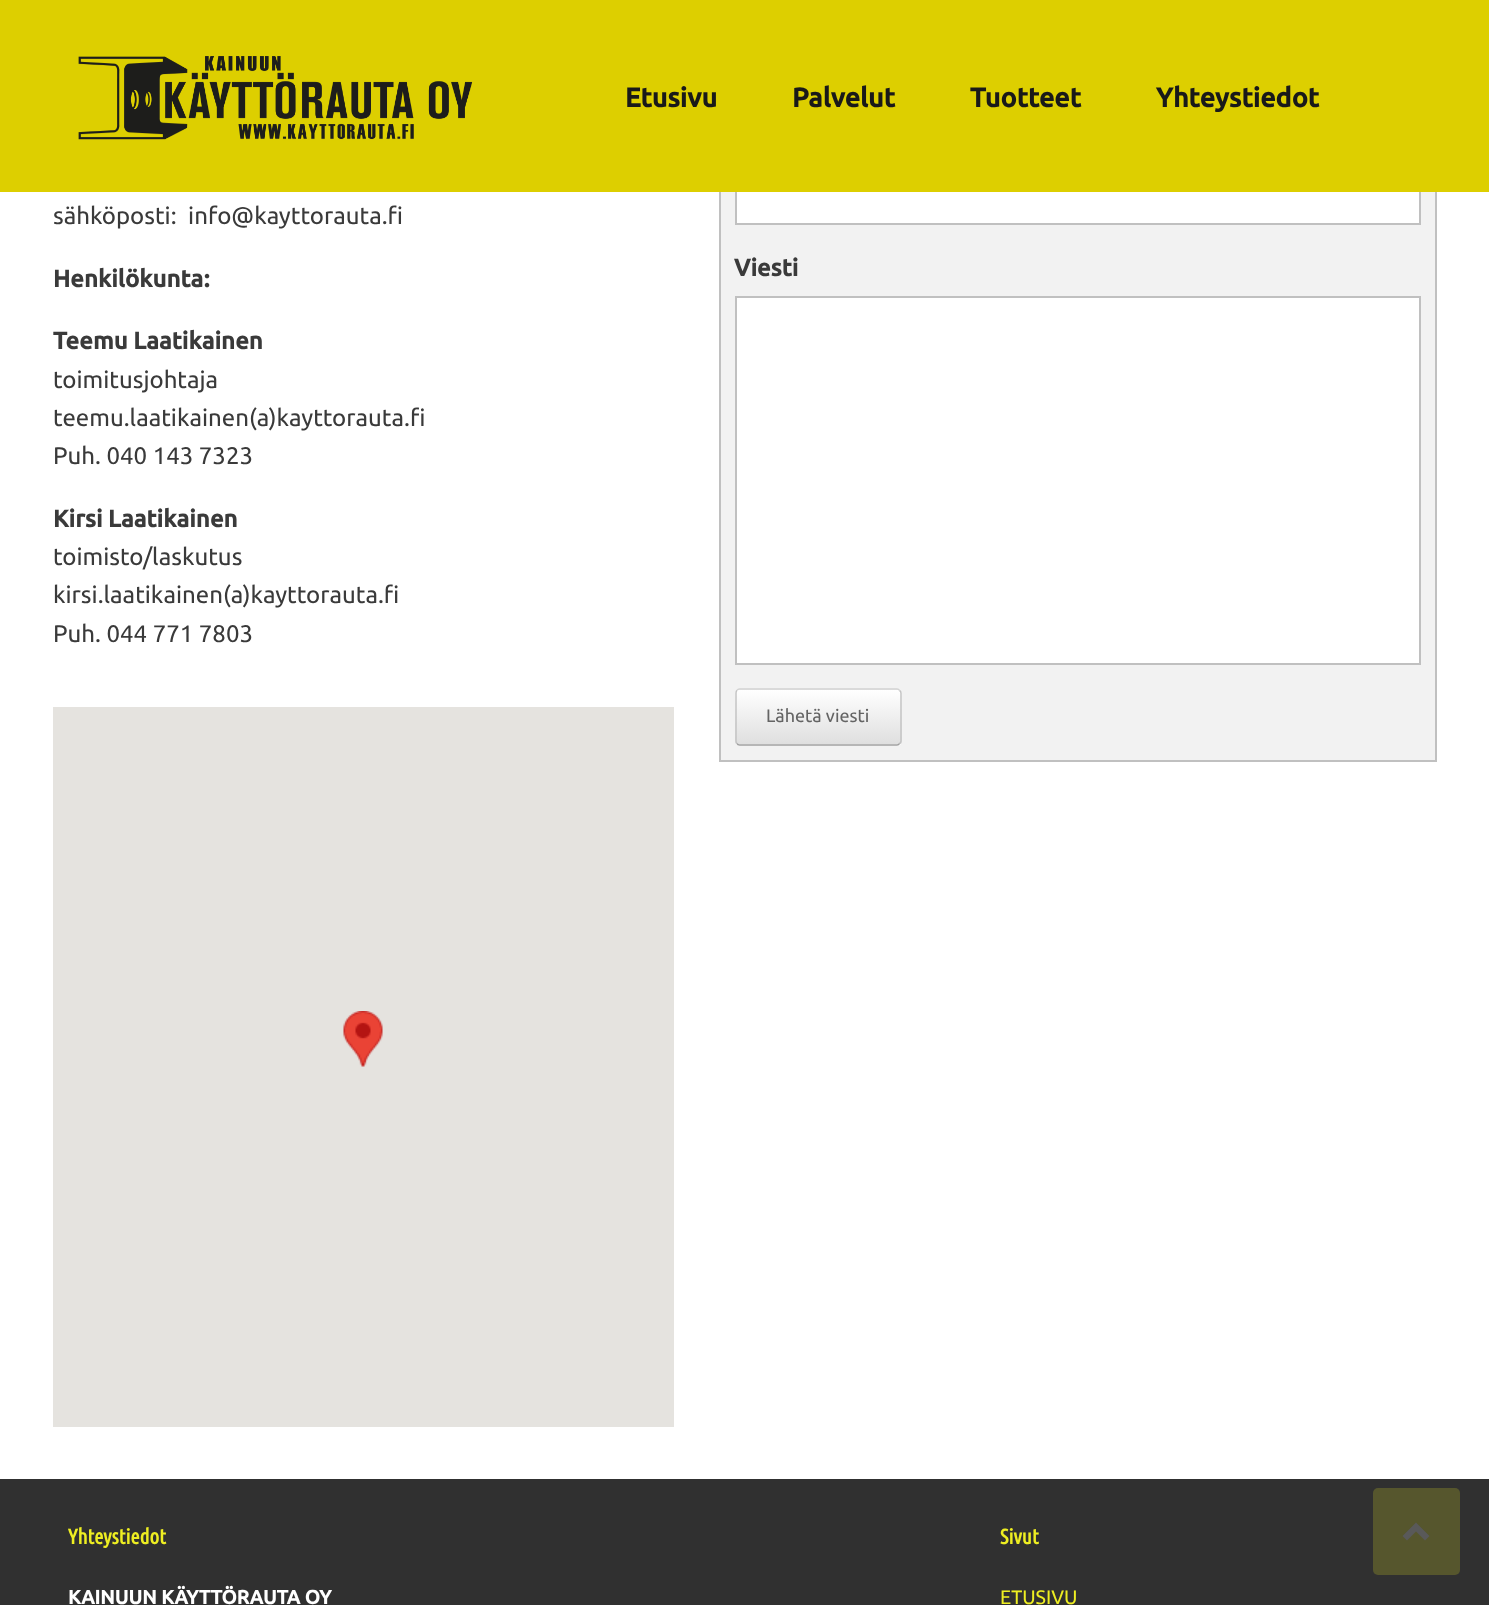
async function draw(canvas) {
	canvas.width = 1489;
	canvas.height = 1605;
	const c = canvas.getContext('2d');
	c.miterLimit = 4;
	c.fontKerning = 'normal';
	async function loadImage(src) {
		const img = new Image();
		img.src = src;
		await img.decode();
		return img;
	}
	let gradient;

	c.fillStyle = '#303030';
	c.fillRect(0, 0, 1489, 1605);
	c.fillStyle = '#fff';
	c.fillRect(0, 192, 1489, 1287);
	c.fillStyle = '#f2f2f2';
	c.fillRect(721, 192, 714, 568);
	c.strokeStyle = '#c0c0c0';
	c.lineWidth = 2;
	c.strokeRect(720, -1, 716, 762);
	c.fillStyle = '#fff';
	c.fillRect(737, 192, 682, 31);
	c.strokeRect(736, 187, 684, 37);
	c.fillStyle = '#ddcf00';
	c.fillRect(0, 0, 1489, 192);
	c.drawImage(await loadImage('img1.png'), 78, 56, 395, 84);
	c.font = 'bold 27px Ubuntu';
	c.fillStyle = '#191919';
	for (const [text, x, y] of [
		['Etusivu', 625, 107],
		['Palvelut', 792, 107],
		['Tuotteet', 970, 107],
		['Yhteystiedot', 1156, 107],
	]) {
		c.fillText(text, x, y);
	}
	c.wordSpacing = '6px';
	c.font = '24px Ubuntu';
	c.fillStyle = '#3a3a3a';
	c.fillText('sähköposti: info@kayttorauta.fi', 53, 224);
	c.wordSpacing = '0px';
	c.font = 'bold 24px Ubuntu';
	c.fillText('Henkilökunta:', 53, 287);
	c.fillText('Teemu Laatikainen', 53, 349);
	c.font = '24px Ubuntu';
	for (const [text, x, y] of [
		['toimitusjohtaja', 53, 388],
		['teemu.laatikainen(a)kayttorauta.fi', 53, 426],
		['Puh. 040 143 7323', 53, 464],
	]) {
		c.fillText(text, x, y);
	}
	c.font = 'bold 24px Ubuntu';
	c.fillText('Kirsi Laatikainen', 53, 527);
	c.font = '24px Ubuntu';
	for (const [text, x, y] of [
		['toimisto/laskutus', 53, 565],
		['kirsi.laatikainen(a)kayttorauta.fi', 53, 603],
		['Puh. 044 771 7803', 53, 642],
	]) {
		c.fillText(text, x, y);
	}
	c.fillStyle = '#e5e3df';
	c.fillRect(53, 707, 621, 720);
	c.drawImage(await loadImage('img2.png'), 343, 1011, 40, 56);
	c.font = 'bold 24px Ubuntu';
	c.fillStyle = '#3a3a3a';
	c.fillText('Viesti', 734, 276);
	c.fillStyle = '#fff';
	c.beginPath();
	c.rect(736, 297, 684, 367);
	c.fill();
	c.stroke();
	c.save();
	c.beginPath();
	c.roundRect(735, 689, 167, 57, 5);
	c.clip();
	gradient = c.createLinearGradient(737, 744, 737, 690);
	gradient.addColorStop(0, '#dfdfdf');
	gradient.addColorStop(1, '#fff');
	c.fillStyle = gradient;
	c.fillRect(735, 690, 167, 54);
	gradient = c.createLinearGradient(737, 798, 737, 744);
	gradient.addColorStop(0, '#dfdfdf');
	gradient.addColorStop(1, '#fff');
	c.fillStyle = gradient;
	c.fillRect(735, 744, 167, 2);
	c.restore();
	c.beginPath();
	c.moveTo(737, 690.5);
	c.bezierCurveTo(737.5, 689.5, 738.5, 689, 739.5, 689);
	c.lineTo(897, 689);
	c.bezierCurveTo(898, 689, 899, 689.5, 899.5, 690.5);
	c.strokeStyle = '#d2d2d2';
	c.lineWidth = 1.5;
	c.stroke();
	c.beginPath();
	c.moveTo(899.5, 690.5);
	c.bezierCurveTo(900.5, 691, 901, 692, 901, 693);
	c.lineTo(901, 741);
	c.bezierCurveTo(901, 742, 900.5, 743, 899.5, 743.5);
	c.strokeStyle = '#c3c3c3';
	c.stroke();
	c.beginPath();
	c.moveTo(899.5, 743.5);
	c.bezierCurveTo(899, 744.5, 898, 745, 897, 745);
	c.lineTo(739.5, 745);
	c.bezierCurveTo(738.5, 745, 737.5, 744.5, 737, 743.5);
	c.strokeStyle = '#9f9f9f';
	c.stroke();
	c.beginPath();
	c.moveTo(737, 743.5);
	c.bezierCurveTo(736, 743, 736, 742, 736, 741);
	c.lineTo(736, 693);
	c.bezierCurveTo(736, 692, 736, 691, 737, 690.5);
	c.strokeStyle = '#c3c3c3';
	c.stroke();
	c.font = '18px Ubuntu';
	c.fillStyle = '#646464';
	c.fillText('Lähetä viesti', 766, 722);
	c.font = 'bold 21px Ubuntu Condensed';
	c.fillStyle = '#ee2';
	c.fillText('Yhteystiedot', 68, 1544);
	c.font = 'bold 19.5px Ubuntu';
	c.fillStyle = '#fff';
	c.fillText('KAINUUN KÄYTTÖRAUTA OY', 68, 1604);
	c.font = 'bold 21px Ubuntu Condensed';
	c.fillStyle = '#ee2';
	c.fillText('Sivut', 1000, 1544);
	c.font = '19.5px Ubuntu';
	c.fillText('ETUSIVU', 1000, 1604);
	c.fillStyle = '#56562d';
	c.beginPath();
	c.roundRect(1373, 1488, 87, 87, 5);
	c.fill();
	c.fillStyle = '#595959';
	c.beginPath();
	c.moveTo(1429.5, 1536);
	c.lineTo(1416, 1522.5);
	c.lineTo(1402.5, 1536);
	c.lineTo(1407, 1540.5);
	c.lineTo(1416, 1531.5);
	c.lineTo(1425, 1540.5);
	c.closePath();
	c.fill();
}

draw(document.querySelector('canvas'));
